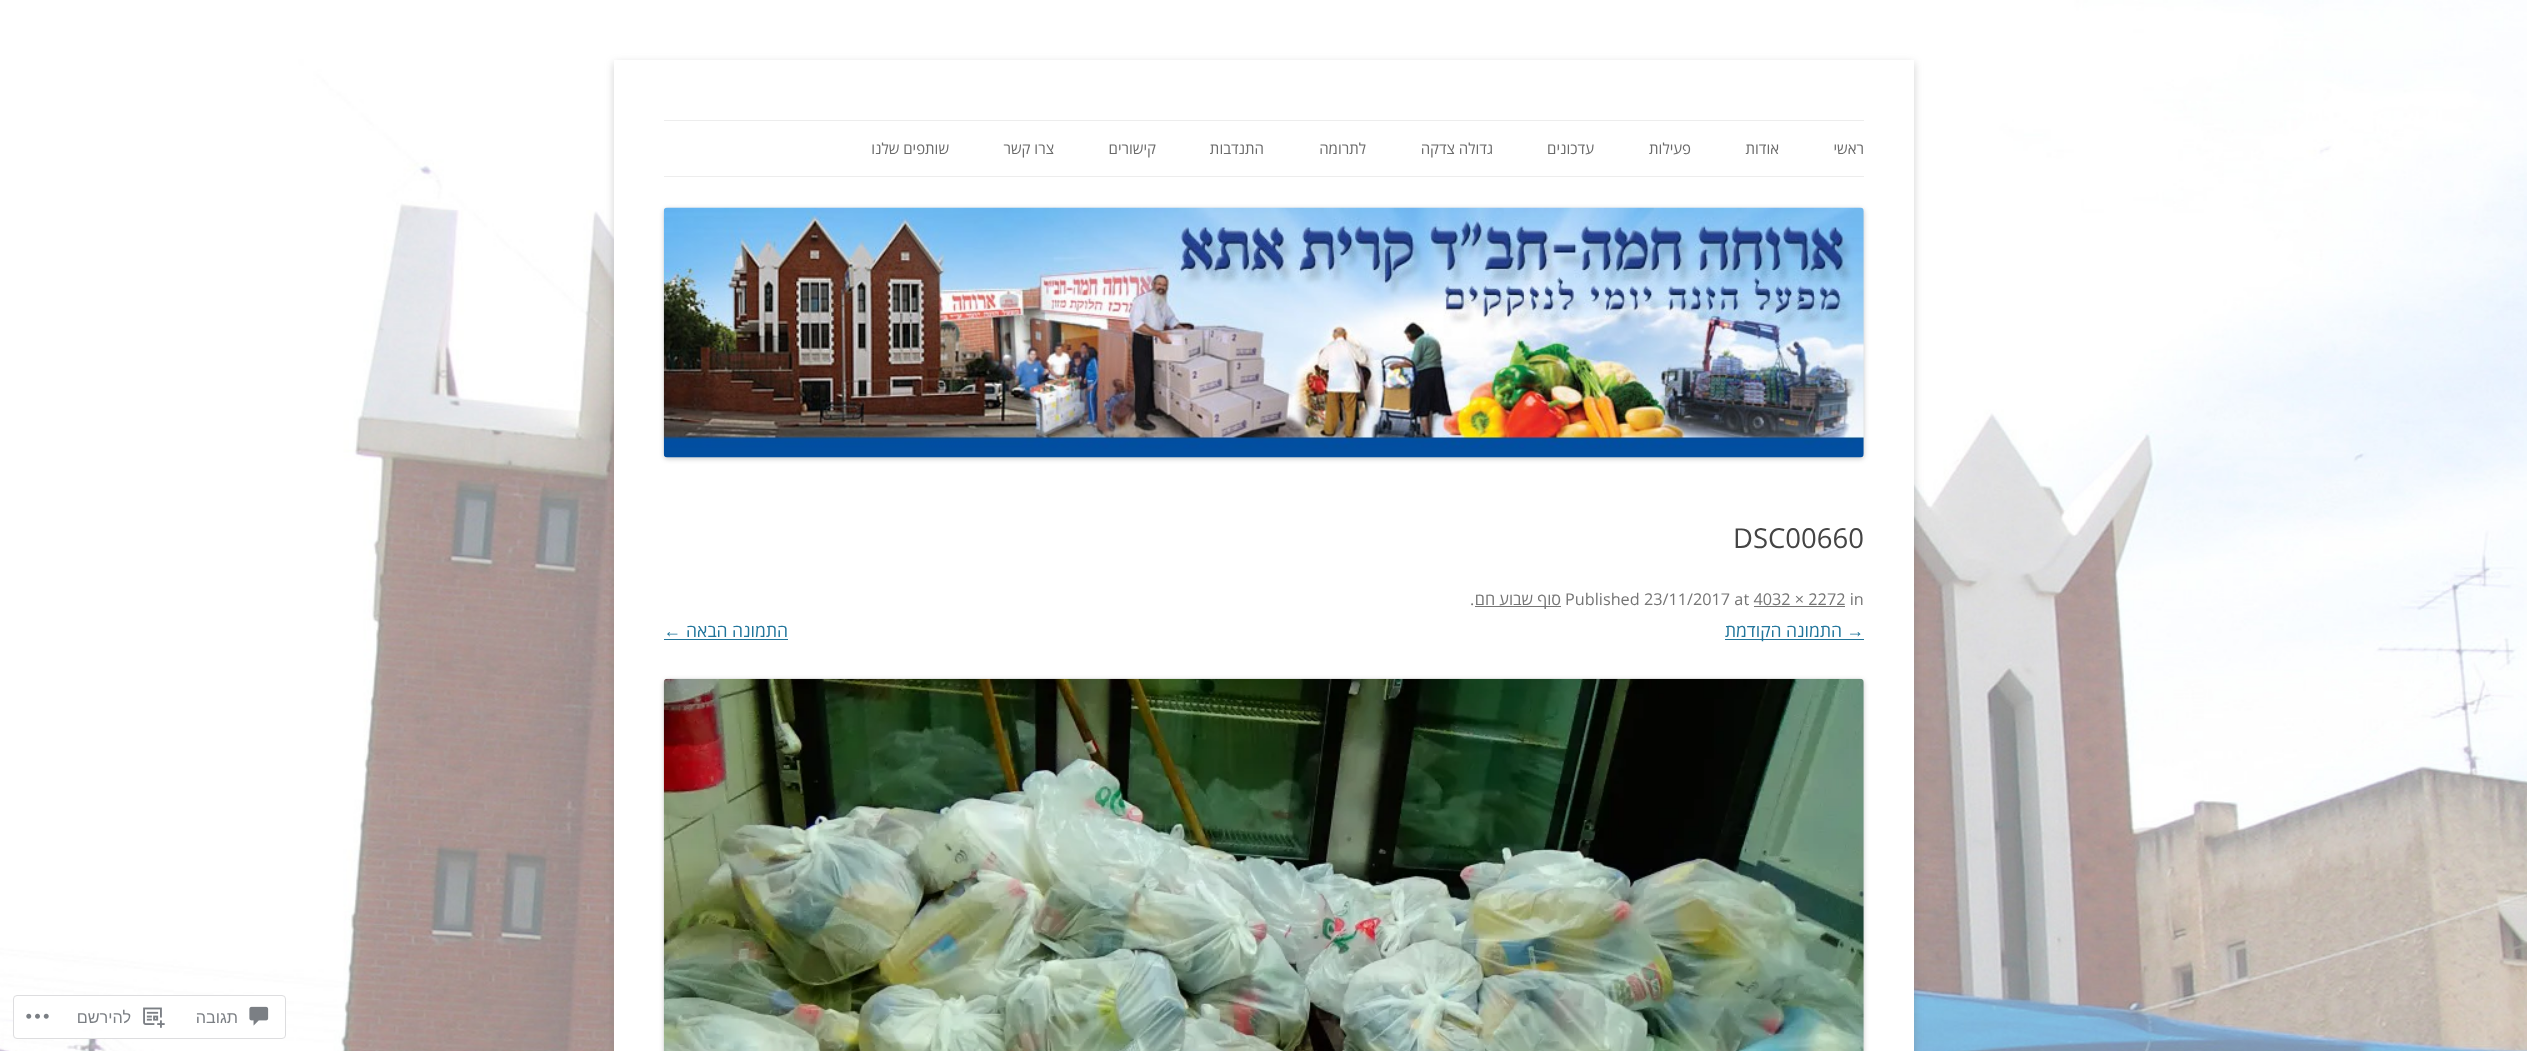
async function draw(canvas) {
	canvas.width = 2527;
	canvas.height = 1051;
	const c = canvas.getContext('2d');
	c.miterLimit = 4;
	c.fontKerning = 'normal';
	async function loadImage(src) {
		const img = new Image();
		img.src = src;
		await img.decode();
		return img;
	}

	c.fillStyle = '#fff';
	c.fillRect(0, 0, 2527, 1051);
	c.drawImage(await loadImage('img1.png'), 0, 0, 2527, 1051);
	c.fillStyle = '#6464644d';
	c.filter = 'blur(4px)';
	c.beginPath();
	c.rect(614, 63, 1300, 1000);
	c.fill();
	c.filter = 'none';
	for (const [x, y, w, h, color] of [
		[614, 60, 1300, 991, '#fff'],
		[664, 120, 1200, 1, '#ededed'],
		[664, 176, 1200, 1, '#ededed'],
	]) {
		c.fillStyle = color;
		c.fillRect(x, y, w, h);
	}
	c.direction = 'rtl';
	c.font = '15px Open Sans';
	c.fillStyle = '#6a6a6a';
	for (const [text, x, y] of [
		['ראשי', 1864, 154],
		['אודות', 1779, 154],
		['פעילות', 1691, 154],
		['עדכונים', 1594, 154],
		['גדולה צדקה', 1493, 154],
		['לתרומה', 1366, 154],
		['התנדבות', 1264, 154],
		['קישורים', 1156, 154],
		['צרו קשר', 1054, 154],
		['שותפים שלנו', 949, 154],
	]) {
		c.fillText(text, x, y);
	}
	c.fillStyle = '#00000033';
	c.filter = 'blur(2.5px)';
	c.beginPath();
	c.roundRect(664, 209, 1200, 250, 4);
	c.fill();
	c.filter = 'none';
	c.drawImage(await loadImage('img2.png'), 663, 207, 1201, 251);
	c.direction = 'ltr';
	c.font = '27.5px Open Sans';
	c.fillStyle = '#444';
	c.fillText('DSC00660', 1733, 548);
	c.font = '16.25px Open Sans';
	c.fillStyle = '#757575';
	c.fillText('Published 23/11/2017 at 4032 × 2272 in', 1565, 605);
	c.fillRect(1475, 606, 86, 1);
	c.direction = 'rtl';
	c.fillText('סוף שבוע חם', 1561, 605);
	c.direction = 'ltr';
	c.fillText('.', 1470, 605);
	c.fillRect(1754, 606, 91, 1);
	c.direction = 'rtl';
	c.font = '17.5px Liberation Sans';
	c.fillStyle = '#21759b';
	c.fillText('→', 1864, 637);
	c.fillRect(1725, 639, 139, 1);
	c.font = '17.5px Open Sans';
	c.fillText('התמונה הקודמת', 1842, 637);
	c.fillText('התמונה הבאה', 788, 637);
	c.font = '17.5px Liberation Sans';
	c.fillText('←', 681, 637);
	c.fillRect(664, 639, 124, 1);
	c.fillStyle = '#00000033';
	c.filter = 'blur(2.5px)';
	c.beginPath();
	c.roundRect(664, 680, 1200, 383, 4);
	c.fill();
	c.filter = 'none';
	c.drawImage(await loadImage('img3.png'), 663, 678, 1201, 373);
	c.fillStyle = '#fffffffa';
	c.beginPath();
	c.roundRect(13.5, 995.5, 272, 43, 3.5);
	c.fill();
	c.strokeStyle = '#dddddf';
	c.stroke();
	c.drawImage(await loadImage('img4.png'), 249, 1006, 20, 20);
	c.font = '16.25px Liberation Sans';
	c.fillStyle = '#7b7f84';
	c.fillText('תגובה', 238, 1023);
	c.drawImage(await loadImage('img5.png'), 143, 1007, 22, 21);
	c.fillText('להירשם', 131, 1023);
	c.drawImage(await loadImage('img6.png'), 26, 1013, 23, 6);
}

draw(document.querySelector('canvas'));
